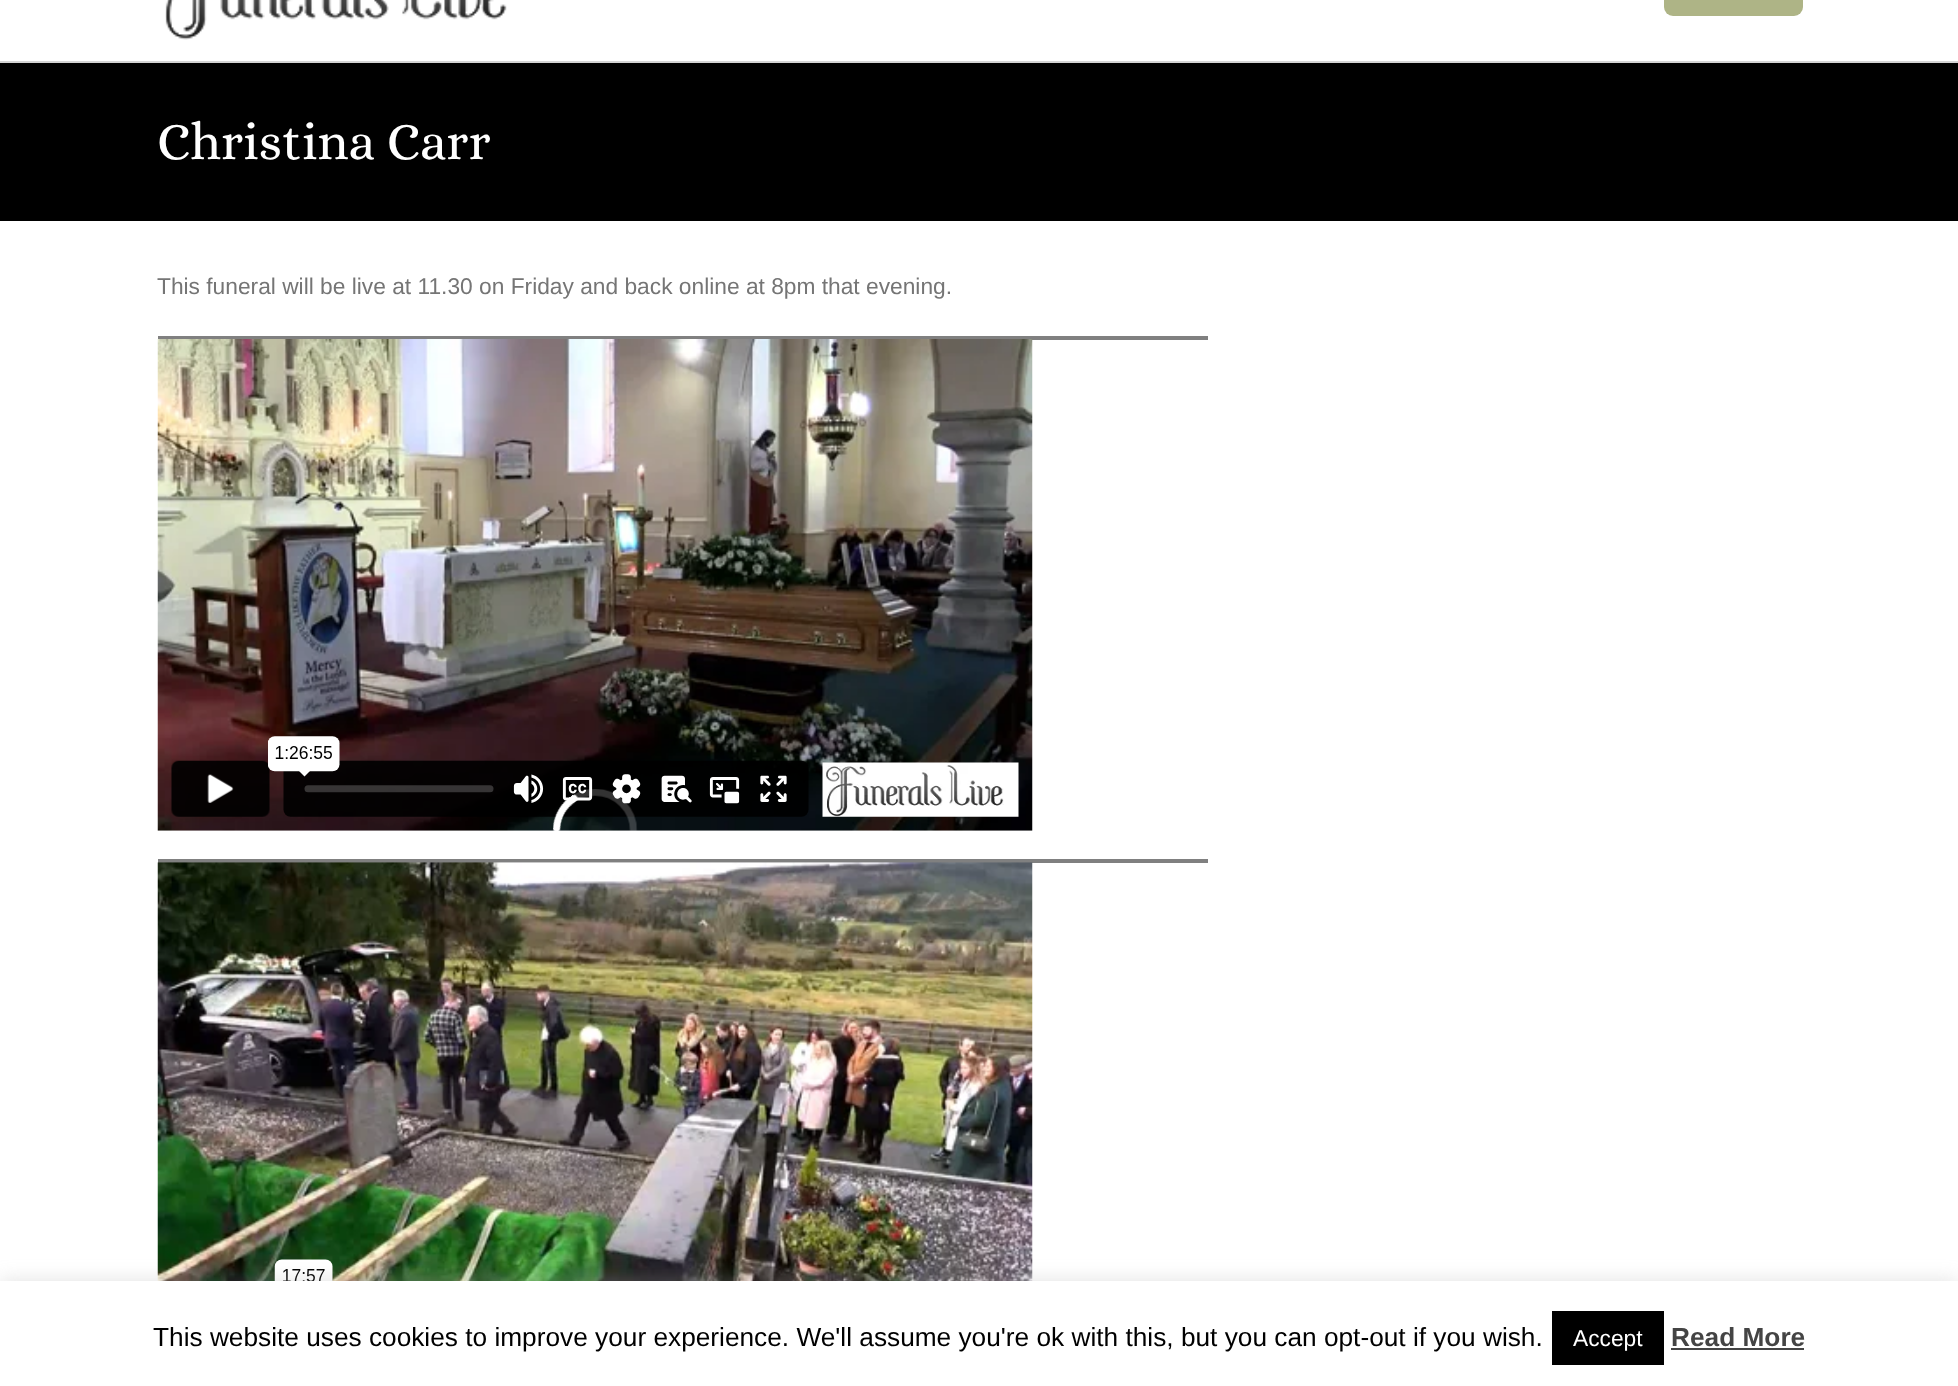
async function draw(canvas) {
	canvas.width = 1958;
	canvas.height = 1386;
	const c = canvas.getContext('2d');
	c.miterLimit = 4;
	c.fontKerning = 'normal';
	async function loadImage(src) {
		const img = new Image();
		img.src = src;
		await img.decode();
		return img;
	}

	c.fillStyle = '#fff';
	c.fillRect(0, 0, 1958, 1386);
	c.fillStyle = '#d5d5d5';
	c.fillRect(0, 61, 1958, 2);
	c.drawImage(await loadImage('img1.png'), 165, 0, 342, 40);
	c.fillStyle = '#aeb486';
	c.beginPath();
	c.roundRect(1664, -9, 139, 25, 9);
	c.fill();
	c.fillStyle = '#000';
	c.fillRect(0, 63, 1958, 158);
	c.font = '52.5px Alice';
	c.fillStyle = '#fff';
	c.fillText('Christina Carr', 157, 159);
	c.font = '22.75px Liberation Sans';
	c.fillStyle = '#757575';
	c.fillText('This funeral will be live at 11.30 on Friday and back online at 8pm that evening.', 157, 294);
	c.fillStyle = '#808080';
	c.fillRect(158, 336, 1050, 4);
	c.drawImage(await loadImage('img2.png'), 157, 339, 876, 492);
	c.fillRect(158, 859, 1050, 4);
	c.drawImage(await loadImage('img3.png'), 157, 862, 876, 419);
	c.fillStyle = '#acabab4d';
	c.filter = 'blur(9px)';
	c.beginPath();
	c.rect(0, 1279, 1958, 105);
	c.fill();
	c.filter = 'none';
	c.fillStyle = '#fff';
	c.fillRect(0, 1281, 1958, 105);
	c.font = '26.25px Liberation Sans';
	c.fillStyle = '#000';
	c.fillText('This website uses cookies to improve your experience. We\'ll assume you\'re ok with this, but you can opt-out if you wish.', 153, 1346);
	c.fillRect(1552, 1311, 112, 54);
	c.font = '22.75px Liberation Sans';
	c.fillStyle = '#fff';
	c.fillText('Accept', 1573, 1346);
	c.font = 'bold 26.25px Liberation Sans';
	c.fillStyle = '#444';
	c.fillText('Read More', 1671, 1346);
	c.fillRect(1671, 1348, 133, 2);
}

draw(document.querySelector('canvas'));
